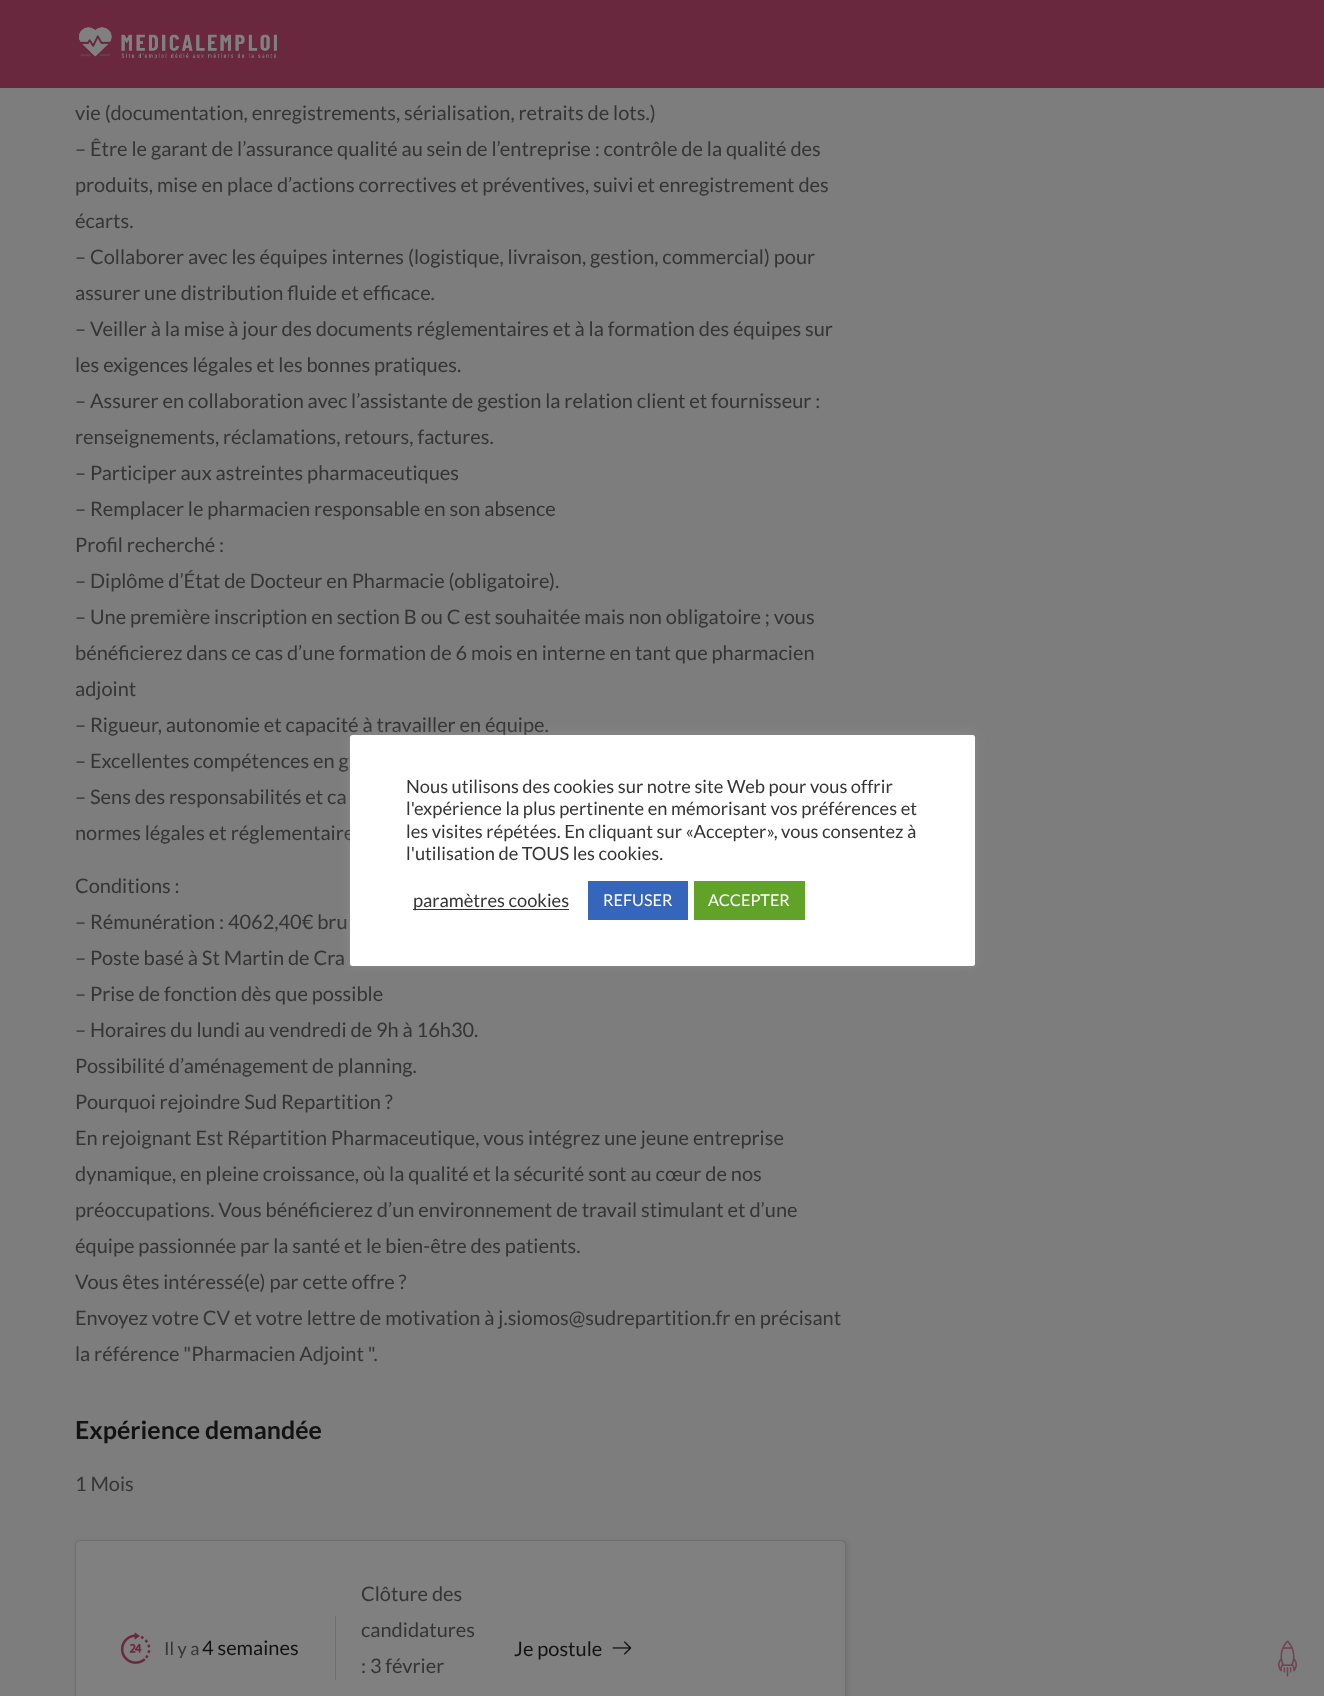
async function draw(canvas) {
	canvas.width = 1324;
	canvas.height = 1696;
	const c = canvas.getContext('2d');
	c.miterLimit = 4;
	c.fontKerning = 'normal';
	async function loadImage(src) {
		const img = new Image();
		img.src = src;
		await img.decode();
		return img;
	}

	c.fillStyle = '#7d7d7d';
	c.fillRect(0, 0, 1324, 1696);
	c.fillStyle = '#6a283f';
	c.fillRect(0, 0, 1324, 88);
	c.drawImage(await loadImage('img1.png'), 79, 27, 198, 32);
	c.font = '20px Lato';
	c.fillStyle = '#353535';
	for (const [text, x, y] of [
		['vie (documentation, enregistrements, sérialisation, retraits de lots.)', 75, 120],
		['– Être le garant de l’assurance qualité au sein de l’entreprise : contrôle de la qualité des', 75, 156],
		['produits, mise en place d’actions correctives et préventives, suivi et enregistrement des', 75, 192],
		['écarts.', 75, 228],
		['– Collaborer avec les équipes internes (logistique, livraison, gestion, commercial) pour', 75, 264],
		['assurer une distribution fluide et efficace.', 75, 300],
		['– Veiller à la mise à jour des documents réglementaires et à la formation des équipes sur', 75, 336],
		['les exigences légales et les bonnes pratiques.', 75, 372],
		['– Assurer en collaboration avec l’assistante de gestion la relation client et fournisseur :', 75, 408],
		['renseignements, réclamations, retours, factures.', 75, 444],
		['– Participer aux astreintes pharmaceutiques', 75, 480],
		['– Remplacer le pharmacien responsable en son absence', 75, 516],
		['Profil recherché :', 75, 552],
		['– Diplôme d’État de Docteur en Pharmacie (obligatoire).', 75, 588],
		['– Une première inscription en section B ou C est souhaitée mais non obligatoire ; vous', 75, 624],
		['bénéficierez dans ce cas d’une formation de 6 mois en interne en tant que pharmacien', 75, 660],
		['adjoint', 75, 696],
		['– Rigueur, autonomie et capacité à travailler en équipe.', 75, 732],
		['– Excellentes compétences en g', 75, 768],
		['– Sens des responsabilités et ca', 75, 804],
		['normes légales et réglementaire', 75, 840],
		['Conditions :', 75, 893],
		['– Rémunération : 4062,40€ bru', 75, 929],
		['– Poste basé à St Martin de Cra', 75, 965],
		['– Prise de fonction dès que possible', 75, 1001],
		['– Horaires du lundi au vendredi de 9h à 16h30.', 75, 1037],
		['Possibilité d’aménagement de planning.', 75, 1073],
		['Pourquoi rejoindre Sud Repartition ?', 75, 1109],
		['En rejoignant Est Répartition Pharmaceutique, vous intégrez une jeune entreprise', 75, 1145],
		['dynamique, en pleine croissance, où la qualité et la sécurité sont au cœur de nos', 75, 1181],
		['préoccupations. Vous bénéficierez d’un environnement de travail stimulant et d’une', 75, 1217],
		['équipe passionnée par la santé et le bien-être des patients.', 75, 1253],
		['Vous êtes intéressé(e) par cette offre ?', 75, 1289],
		['Envoyez votre CV et votre lettre de motivation à j.siomos@sudrepartition.fr en précisant', 75, 1325],
		['la référence "Pharmacien Adjoint ".', 75, 1361],
	]) {
		c.fillText(text, x, y);
	}
	c.font = 'bold 25px Lato';
	c.fillStyle = '#131313';
	c.fillText('Expérience demandée', 75, 1439);
	c.font = '20px Lato';
	c.fillStyle = '#353535';
	c.fillText('1 Mois', 75, 1491);
	c.fillStyle = '#00000017';
	c.filter = 'blur(2.5px)';
	c.beginPath();
	c.roundRect(76, 1541, 772, 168, 5);
	c.fill();
	c.filter = 'none';
	c.fillStyle = '#808080';
	c.beginPath();
	c.roundRect(75.5, 1540.5, 770, 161, 4.5);
	c.fill();
	c.strokeStyle = '#6f6f6f';
	c.stroke();
	c.fillStyle = '#6f6f6f';
	c.fillRect(335, 1616, 1, 64);
	c.drawImage(await loadImage('img2.png'), 120, 1632, 31, 32);
	c.font = '18px Lato';
	c.fillStyle = '#353535';
	c.fillText('Il y a', 164, 1655);
	c.font = '20px Lato';
	c.fillStyle = '#131313';
	c.fillText('4 semaines', 202, 1655);
	c.fillStyle = '#353535';
	for (const [text, x, y] of [
		['Clôture des', 361, 1601],
		['candidatures', 361, 1637],
		[': 3 février', 361, 1673],
	]) {
		c.fillText(text, x, y);
	}
	c.fillStyle = '#131313';
	c.fillText('Je postule', 514, 1656);
	c.drawImage(await loadImage('img3.png'), 612, 1641, 20, 14);
	c.drawImage(await loadImage('img4.png'), 1278, 1640, 19, 37);
	c.fillStyle = '#acabab4d';
	c.filter = 'blur(6px)';
	c.beginPath();
	c.roundRect(350, 734, 625, 231, 2.5);
	c.fill();
	c.filter = 'none';
	c.fillStyle = '#fff';
	c.beginPath();
	c.roundRect(350, 735, 625, 231, 2.5);
	c.fill();
	c.font = '18.3px Lato';
	c.fillStyle = '#353535';
	for (const [text, x, y] of [
		['Nous utilisons des cookies sur notre site Web pour vous offrir', 406, 793],
		['l\'expérience la plus pertinente en mémorisant vos préférences et', 406, 815],
		['les visites répétées. En cliquant sur «Accepter», vous consentez à', 406, 838],
		['l\'utilisation de TOUS les cookies.', 406, 860],
	]) {
		c.fillText(text, x, y);
	}
	c.fillStyle = '#333';
	c.fillRect(413, 909, 156, 1);
	c.fillStyle = '#353535';
	c.fillText('paramètres cookies', 413, 907);
	c.fillStyle = '#3566bb';
	c.fillRect(588, 881, 100, 39);
	c.font = '16.25px Lato';
	c.fillStyle = '#fff';
	c.fillText('REFUSER', 603, 906);
	c.fillStyle = '#61a229';
	c.fillRect(694, 881, 111, 39);
	c.fillStyle = '#fff';
	c.fillText('ACCEPTER', 708, 906);
}

draw(document.querySelector('canvas'));
